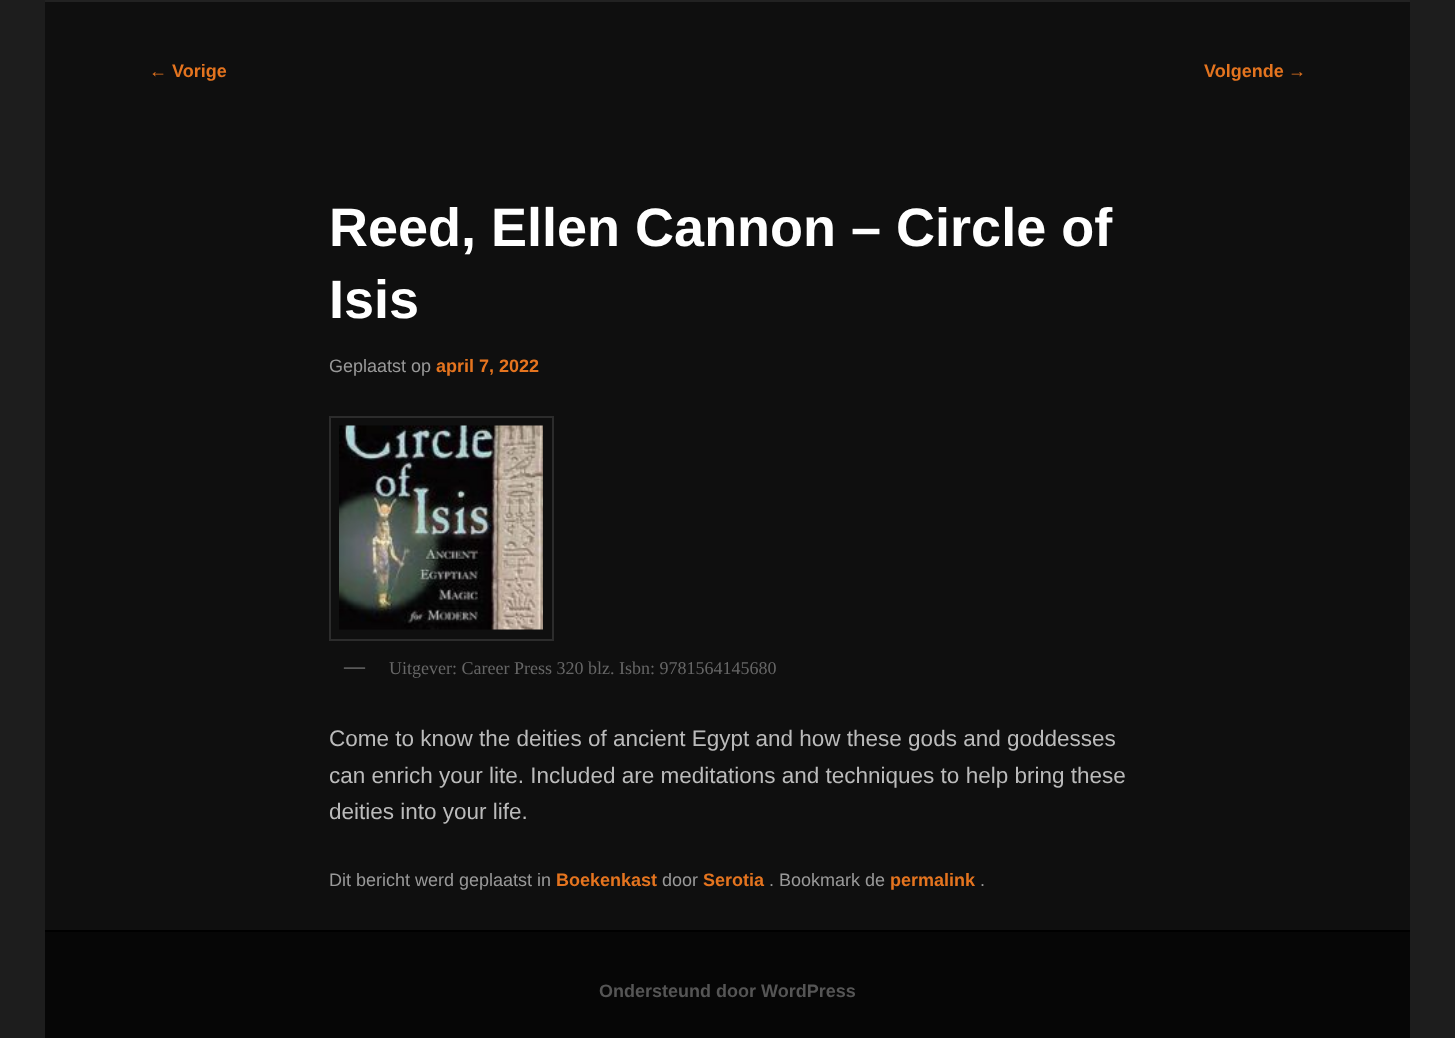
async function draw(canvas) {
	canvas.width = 1455;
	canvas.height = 1038;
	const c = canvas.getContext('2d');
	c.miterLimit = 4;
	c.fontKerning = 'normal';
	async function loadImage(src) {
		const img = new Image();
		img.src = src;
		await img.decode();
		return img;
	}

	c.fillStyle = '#1d1d1d';
	c.fillRect(0, 0, 1455, 1038);
	c.fillStyle = '#0f0f0f';
	c.fillRect(45, 2, 1365, 928);
	c.fillStyle = '#222';
	c.fillRect(45, 0, 1365, 2);
	c.font = '18px Liberation Sans';
	c.fillStyle = '#e4741f';
	c.fillText('←', 149, 77);
	c.font = 'bold 18px Liberation Sans';
	c.fillText('Vorige', 172, 77);
	c.fillText('Volgende', 1204, 77);
	c.font = '18px Liberation Sans';
	c.fillText('→', 1288, 77);
	c.font = 'bold 54px Liberation Sans';
	c.fillStyle = '#fff';
	c.fillText('Reed, Ellen Cannon – Circle of', 329, 246);
	c.fillText('Isis', 329, 318);
	c.font = '18px Liberation Sans';
	c.fillStyle = '#999';
	c.fillText('Geplaatst op', 329, 372);
	c.font = 'bold 18px Liberation Sans';
	c.fillStyle = '#e4741f';
	c.fillText('april 7, 2022', 436, 372);
	c.strokeStyle = '#2c2c2c';
	c.lineWidth = 2;
	c.strokeRect(330, 417, 223, 223);
	c.drawImage(await loadImage('img1.png'), 339, 425, 204, 205);
	c.font = 'bold 21px Liberation Serif';
	c.fillStyle = '#666';
	c.fillText('—', 344, 673);
	c.font = '18px Liberation Serif';
	c.fillText('Uitgever: Career Press 320 blz. Isbn: 9781564145680', 389, 674);
	c.font = '22.5px Liberation Sans';
	c.fillStyle = '#bbb';
	for (const [text, x, y] of [
		['Come to know the deities of ancient Egypt and how these gods and goddesses', 329, 746],
		['can enrich your lite. Included are meditations and techniques to help bring these', 329, 783],
		['deities into your life.', 329, 819],
	]) {
		c.fillText(text, x, y);
	}
	c.font = '18px Liberation Sans';
	c.fillStyle = '#999';
	c.fillText('Dit bericht werd geplaatst in', 329, 886);
	c.font = 'bold 18px Liberation Sans';
	c.fillStyle = '#e4741f';
	c.fillText('Boekenkast', 556, 886);
	c.font = '18px Liberation Sans';
	c.fillStyle = '#999';
	c.fillText('door', 662, 886);
	c.font = 'bold 18px Liberation Sans';
	c.fillStyle = '#e4741f';
	c.fillText('Serotia', 703, 886);
	c.font = '18px Liberation Sans';
	c.fillStyle = '#999';
	c.fillText('. Bookmark de', 769, 886);
	c.font = 'bold 18px Liberation Sans';
	c.fillStyle = '#e4741f';
	c.fillText('permalink', 890, 886);
	c.font = '18px Liberation Sans';
	c.fillStyle = '#999';
	c.fillText('.', 980, 886);
	c.fillStyle = '#060606';
	c.fillRect(45, 932, 1365, 106);
	c.fillStyle = '#000';
	c.fillRect(45, 930, 1365, 2);
	c.font = 'bold 18px Liberation Sans';
	c.fillStyle = '#555';
	c.fillText('Ondersteund door WordPress', 599, 997);
}

draw(document.querySelector('canvas'));
